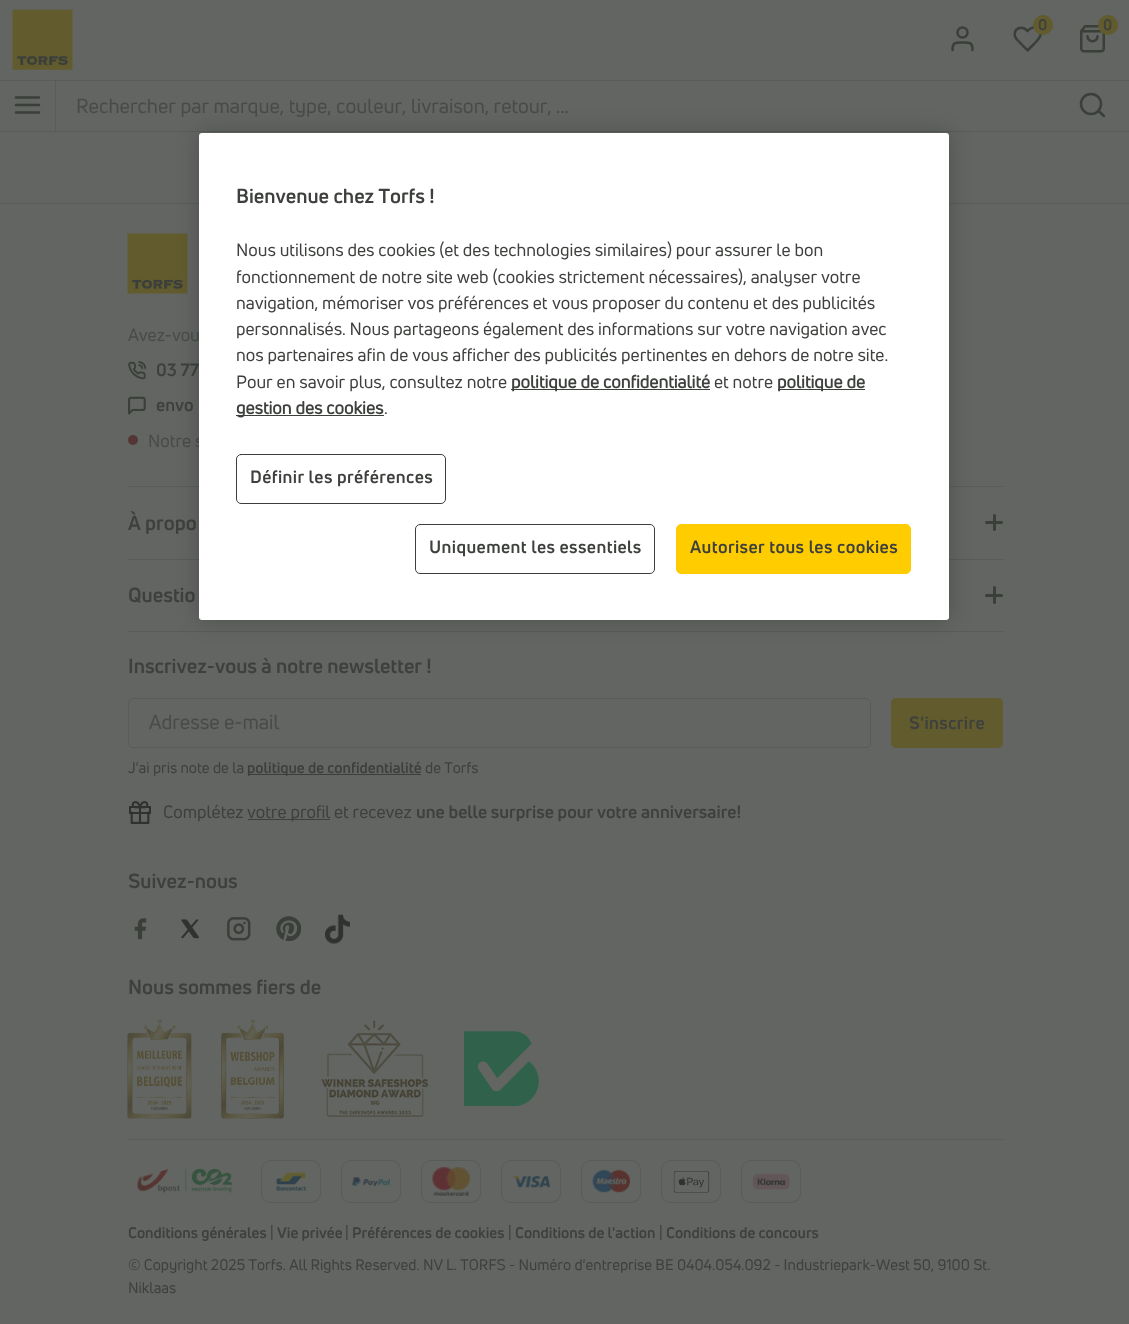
async function draw(canvas) {
	canvas.width = 1129;
	canvas.height = 1324;
	const c = canvas.getContext('2d');
	c.miterLimit = 4;
	c.fontKerning = 'none';
	async function loadImage(src) {
		const img = new Image();
		img.src = src;
		await img.decode();
		return img;
	}

	c.fillStyle = '#626561';
	c.fillRect(0, 0, 1129, 1324);
	c.drawImage(await loadImage('img1.png'), 12, 9, 61, 61);
	c.beginPath();
	c.moveTo(972.5, 50);
	c.bezierCurveTo(972.5, 42, 969.5, 42.5, 962.5, 42.5);
	c.bezierCurveTo(955.5, 42.5, 952.5, 42, 952.5, 50);
	c.strokeStyle = '#3b3f3a';
	c.lineWidth = 2.5;
	c.lineCap = 'round';
	c.lineJoin = 'round';
	c.stroke();
	c.beginPath();
	c.arc(962.5, 32.5, 5, 0, 2 * Math.PI);
	c.stroke();
	c.beginPath();
	c.moveTo(1038.5, 29.5);
	c.bezierCurveTo(1035, 26, 1030.5, 27.5, 1027.5, 31);
	c.lineTo(1026, 29.5);
	c.bezierCurveTo(1023.5, 27, 1019, 27, 1016.5, 29.5);
	c.bezierCurveTo(1014, 32, 1014, 36.5, 1016.5, 39);
	c.lineTo(1027.5, 50.5);
	c.lineTo(1034, 44);
	c.bezierCurveTo(1037.5, 40, 1044, 35, 1038.5, 29.5);
	c.closePath();
	c.stroke();
	c.fillStyle = '#625b2e';
	c.beginPath();
	c.arc(1043, 25, 10, 0, 2 * Math.PI);
	c.fill();
	c.font = '15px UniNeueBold';
	c.fillStyle = '#3d403c';
	c.fillText('0', 1038, 30);
	c.drawImage(await loadImage('img2.png'), 1080, 25, 25, 28);
	c.fillStyle = '#625b2e';
	c.beginPath();
	c.arc(1108, 25, 10, 0, 2 * Math.PI);
	c.fill();
	c.fillStyle = '#3d403c';
	c.fillText('0', 1103, 30);
	c.fillStyle = '#585c59';
	c.fillRect(0, 80, 1129, 1);
	c.fillRect(0, 131, 1129, 1);
	c.beginPath();
	c.moveTo(16, 105);
	c.lineTo(39, 105);
	c.moveTo(16, 97.5);
	c.lineTo(39, 97.5);
	c.moveTo(16, 112.5);
	c.lineTo(39, 112.5);
	c.stroke();
	c.fillRect(55, 81, 1, 50);
	c.font = '20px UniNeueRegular';
	c.fillStyle = '#484b47';
	c.fillText('Rechercher par marque, type, couleur,', 76, 113);
	c.fillText('livraison, retour, ...', 411, 113);
	c.beginPath();
	c.arc(1091, 104, 10, 0, 2 * Math.PI);
	c.stroke();
	c.beginPath();
	c.moveTo(1104, 116);
	c.lineTo(1098.5, 111);
	c.stroke();
	c.fillStyle = '#585c59';
	c.fillRect(0, 203, 1129, 1);
	c.drawImage(await loadImage('img3.png'), 127, 233, 61, 61);
	c.fillRect(128, 486, 875, 1);
	c.font = '17.5px UniNeueRegular';
	c.fillStyle = '#484b47';
	c.fillText('Avez-vou', 128, 341);
	c.drawImage(await loadImage('img4.png'), 128, 361, 18, 19);
	c.font = '17.5px UniNeueBold';
	c.fillStyle = '#3d403c';
	c.fillText('03 77', 156, 376);
	c.drawImage(await loadImage('img5.png'), 128, 396, 18, 19);
	c.fillText('envo', 156, 411);
	c.fillStyle = '#553636';
	c.beginPath();
	c.arc(133, 440, 5, 0, 2 * Math.PI);
	c.fill();
	c.font = '17.5px UniNeueRegular';
	c.fillStyle = '#484b47';
	c.fillText('Notre s', 148, 447);
	c.fillStyle = '#585c59';
	c.fillRect(128, 559, 875, 1);
	c.font = '20px UniNeueBold';
	c.fillStyle = '#3d403c';
	c.fillText('À propo', 128, 530);
	c.fillStyle = '#3b3f3a';
	c.beginPath();
	c.roundRect(985, 521, 18, 3, 1.5);
	c.fill();
	c.beginPath();
	c.roundRect(993, 514, 3, 17, 1.5);
	c.fill();
	c.fillStyle = '#585c59';
	c.fillRect(128, 631, 875, 1);
	c.fillStyle = '#3d403c';
	c.fillText('Questio', 128, 602);
	c.fillStyle = '#3b3f3a';
	c.beginPath();
	c.roundRect(985, 594, 18, 3, 1.5);
	c.fill();
	c.beginPath();
	c.roundRect(993, 586, 3, 18, 1.5);
	c.fill();
	c.fillStyle = '#3d403c';
	c.fillText('Inscrivez-vous à notre newsletter !', 128, 673);
	c.beginPath();
	c.roundRect(128.5, 698.5, 742, 49, 4.5);
	c.strokeStyle = '#585c59';
	c.lineWidth = 1;
	c.lineJoin = 'miter';
	c.stroke();
	c.font = '20px UniNeueRegular';
	c.fillStyle = '#484b47';
	c.fillText('Adresse e-mail', 149, 729);
	c.fillStyle = '#625b2e';
	c.beginPath();
	c.roundRect(892.5, 699.5, 109, 47, 3.5);
	c.fill();
	c.strokeStyle = '#625b2e';
	c.lineWidth = 3;
	c.stroke();
	c.letterSpacing = '0.4px';
	c.font = '17.5px UniNeueBold';
	c.fillStyle = '#3d403c';
	c.fillText('S\'inscrire', 909, 729);
	c.letterSpacing = '0px';
	c.font = '15px UniNeueRegular';
	c.fillText('J\'ai pris note de la', 128, 773);
	c.fillStyle = '#3b3f3a';
	c.fillRect(248, 774, 173, 1);
	c.font = '15px UniNeueBold';
	c.fillStyle = '#3d403c';
	c.fillText('politique de confidentialité', 247, 773);
	c.font = '15px UniNeueRegular';
	c.fillText('de Torfs', 425, 773);
	c.drawImage(await loadImage('img6.png'), 129, 801, 22, 23);
	c.font = '17.5px UniNeueRegular';
	c.fillText('Complétez', 163, 818);
	c.fillRect(248, 819, 82, 1);
	c.fillText('votre profil', 247, 818);
	c.fillText('et recevez', 334, 818);
	c.font = '17.5px UniNeueBold';
	c.fillText('une belle surprise pour votre anniversaire!', 416, 818);
	c.font = '20px UniNeueBold';
	c.fillText('Suivez-nous', 128, 888);
	c.drawImage(await loadImage('img7.png'), 134, 918, 13, 22);
	c.drawImage(await loadImage('img8.png'), 181, 919, 18, 20);
	c.drawImage(await loadImage('img9.png'), 227, 917, 24, 24);
	c.drawImage(await loadImage('img10.png'), 276, 916, 25, 25);
	c.drawImage(await loadImage('img11.png'), 325, 914, 25, 30);
	c.fillText('Nous sommes fiers de', 128, 994);
	c.drawImage(await loadImage('img12.png'), 127, 1019, 65, 100);
	c.drawImage(await loadImage('img13.png'), 221, 1019, 63, 100);
	c.drawImage(await loadImage('img14.png'), 321, 1020, 108, 97);
	c.drawImage(await loadImage('img15.png'), 464, 1031, 75, 75);
	c.fillStyle = '#585c59';
	c.fillRect(128, 1139, 875, 1);
	c.drawImage(await loadImage('img16.png'), 136, 1168, 96, 25);
	c.beginPath();
	c.roundRect(261.5, 1160.5, 59, 42, 9.5);
	c.strokeStyle = '#585c59';
	c.lineWidth = 1;
	c.stroke();
	c.drawImage(await loadImage('img17.png'), 276, 1172, 31, 19);
	c.beginPath();
	c.roundRect(341.5, 1160.5, 59, 42, 9.5);
	c.stroke();
	c.drawImage(await loadImage('img18.png'), 352, 1177, 38, 9);
	c.beginPath();
	c.roundRect(421.5, 1160.5, 59, 42, 9.5);
	c.stroke();
	c.drawImage(await loadImage('img19.png'), 432, 1167, 38, 29);
	c.beginPath();
	c.roundRect(501.5, 1160.5, 59, 42, 9.5);
	c.stroke();
	c.drawImage(await loadImage('img20.png'), 512, 1176, 38, 12);
	c.beginPath();
	c.roundRect(581.5, 1160.5, 59, 42, 9.5);
	c.stroke();
	c.drawImage(await loadImage('img21.png'), 592, 1169, 38, 24);
	c.beginPath();
	c.roundRect(661.5, 1160.5, 59, 42, 9.5);
	c.stroke();
	c.drawImage(await loadImage('img22.png'), 673, 1170, 37, 23);
	c.beginPath();
	c.roundRect(741.5, 1160.5, 59, 42, 9.5);
	c.stroke();
	c.drawImage(await loadImage('img23.png'), 752, 1173, 38, 17);
	c.font = '15px UniNeueBold';
	c.fillStyle = '#3d403c';
	c.fillText('Conditions générales', 128, 1238);
	c.font = '15px UniNeueRegular';
	c.fillText('|', 270, 1238);
	c.font = '15px UniNeueBold';
	c.fillText('Vie privée', 277, 1238);
	c.font = '15px UniNeueRegular';
	c.fillText('|', 345, 1238);
	c.font = '15px UniNeueBold';
	c.fillText('Préférences de cookies', 352, 1238);
	c.font = '15px UniNeueRegular';
	c.fillText('|', 508, 1238);
	c.font = '15px UniNeueBold';
	c.fillText('Conditions de l\'action', 515, 1238);
	c.font = '15px UniNeueRegular';
	c.fillText('|', 659, 1238);
	c.font = '15px UniNeueBold';
	c.fillText('Conditions de concours', 666, 1238);
	c.font = '15px UniNeueRegular';
	c.fillText('© Copyright 2025 Torfs. All Rights Reserved. NV', 128, 1270);
	c.fillText('L. TORFS - Numéro d\'entreprise BE 0404.054.092 - Industriepark-West', 446, 1270);
	c.fillText('50, 9100 St.', 913, 1270);
	c.fillText('Niklaas', 128, 1293);
	c.fillStyle = '#00000033';
	c.filter = 'blur(11px)';
	c.beginPath();
	c.roundRect(199, 133, 750, 487, 3);
	c.fill();
	c.filter = 'none';
	c.fillStyle = '#fff';
	c.beginPath();
	c.roundRect(199, 133, 750, 487, 3);
	c.fill();
	c.font = '20px UniNeueBold';
	c.fillStyle = '#3d403c';
	c.fillText('Bienvenue chez Torfs !', 236, 203);
	c.font = '17.5px UniNeueRegular';
	for (const [text, x, y] of [
		['Nous utilisons des cookies (et des technologies similaires) pour assurer le bon', 236, 256],
		['fonctionnement de notre site web (cookies strictement nécessaires), analyser', 236, 283],
		['votre', 821, 283],
		['navigation, mémoriser vos préférences et', 236, 309],
		['vous proposer du contenu et des publicités', 552, 309],
		['personnalisés. Nous partageons également des informations sur votre navigation avec', 236, 335],
		['nos partenaires afin de vous afficher des publicités pertinentes en dehors de notre site.', 236, 361],
		['Pour en savoir plus, consultez notre', 236, 388],
	]) {
		c.fillText(text, x, y);
	}
	c.fillStyle = '#3b3f3a';
	c.fillRect(511, 389, 199, 1);
	c.font = 'bold 17.5px UniNeueRegular';
	c.fillStyle = '#3d403c';
	c.fillText('politique de confidentialité', 511, 388);
	c.font = '17.5px UniNeueRegular';
	c.fillText('et notre', 714, 388);
	c.fillStyle = '#3b3f3a';
	c.fillRect(778, 389, 87, 1);
	c.font = 'bold 17.5px UniNeueRegular';
	c.fillStyle = '#3d403c';
	c.fillText('politique de', 777, 388);
	c.fillStyle = '#3b3f3a';
	c.fillRect(236, 415, 148, 1);
	c.fillStyle = '#3d403c';
	c.fillText('gestion des cookies', 236, 414);
	c.font = '17.5px UniNeueRegular';
	c.fillText('.', 384, 414);
	c.beginPath();
	c.roundRect(236.5, 454.5, 209, 49, 4.5);
	c.strokeStyle = '#3b3f3a';
	c.stroke();
	c.letterSpacing = '0.4px';
	c.font = '17.5px UniNeueBold';
	c.fillText('Définir les préférences', 250, 483);
	c.beginPath();
	c.roundRect(415.5, 524.5, 239, 49, 4.5);
	c.stroke();
	c.fillText('Uniquement les essentiels', 429, 553);
	c.fillStyle = '#fc0';
	c.beginPath();
	c.roundRect(676.5, 524.5, 234, 49, 4.5);
	c.fill();
	c.strokeStyle = '#fc0';
	c.stroke();
	c.fillStyle = '#3d403c';
	c.fillText('Autoriser tous les cookies', 690, 553);
}

draw(document.querySelector('canvas'));
